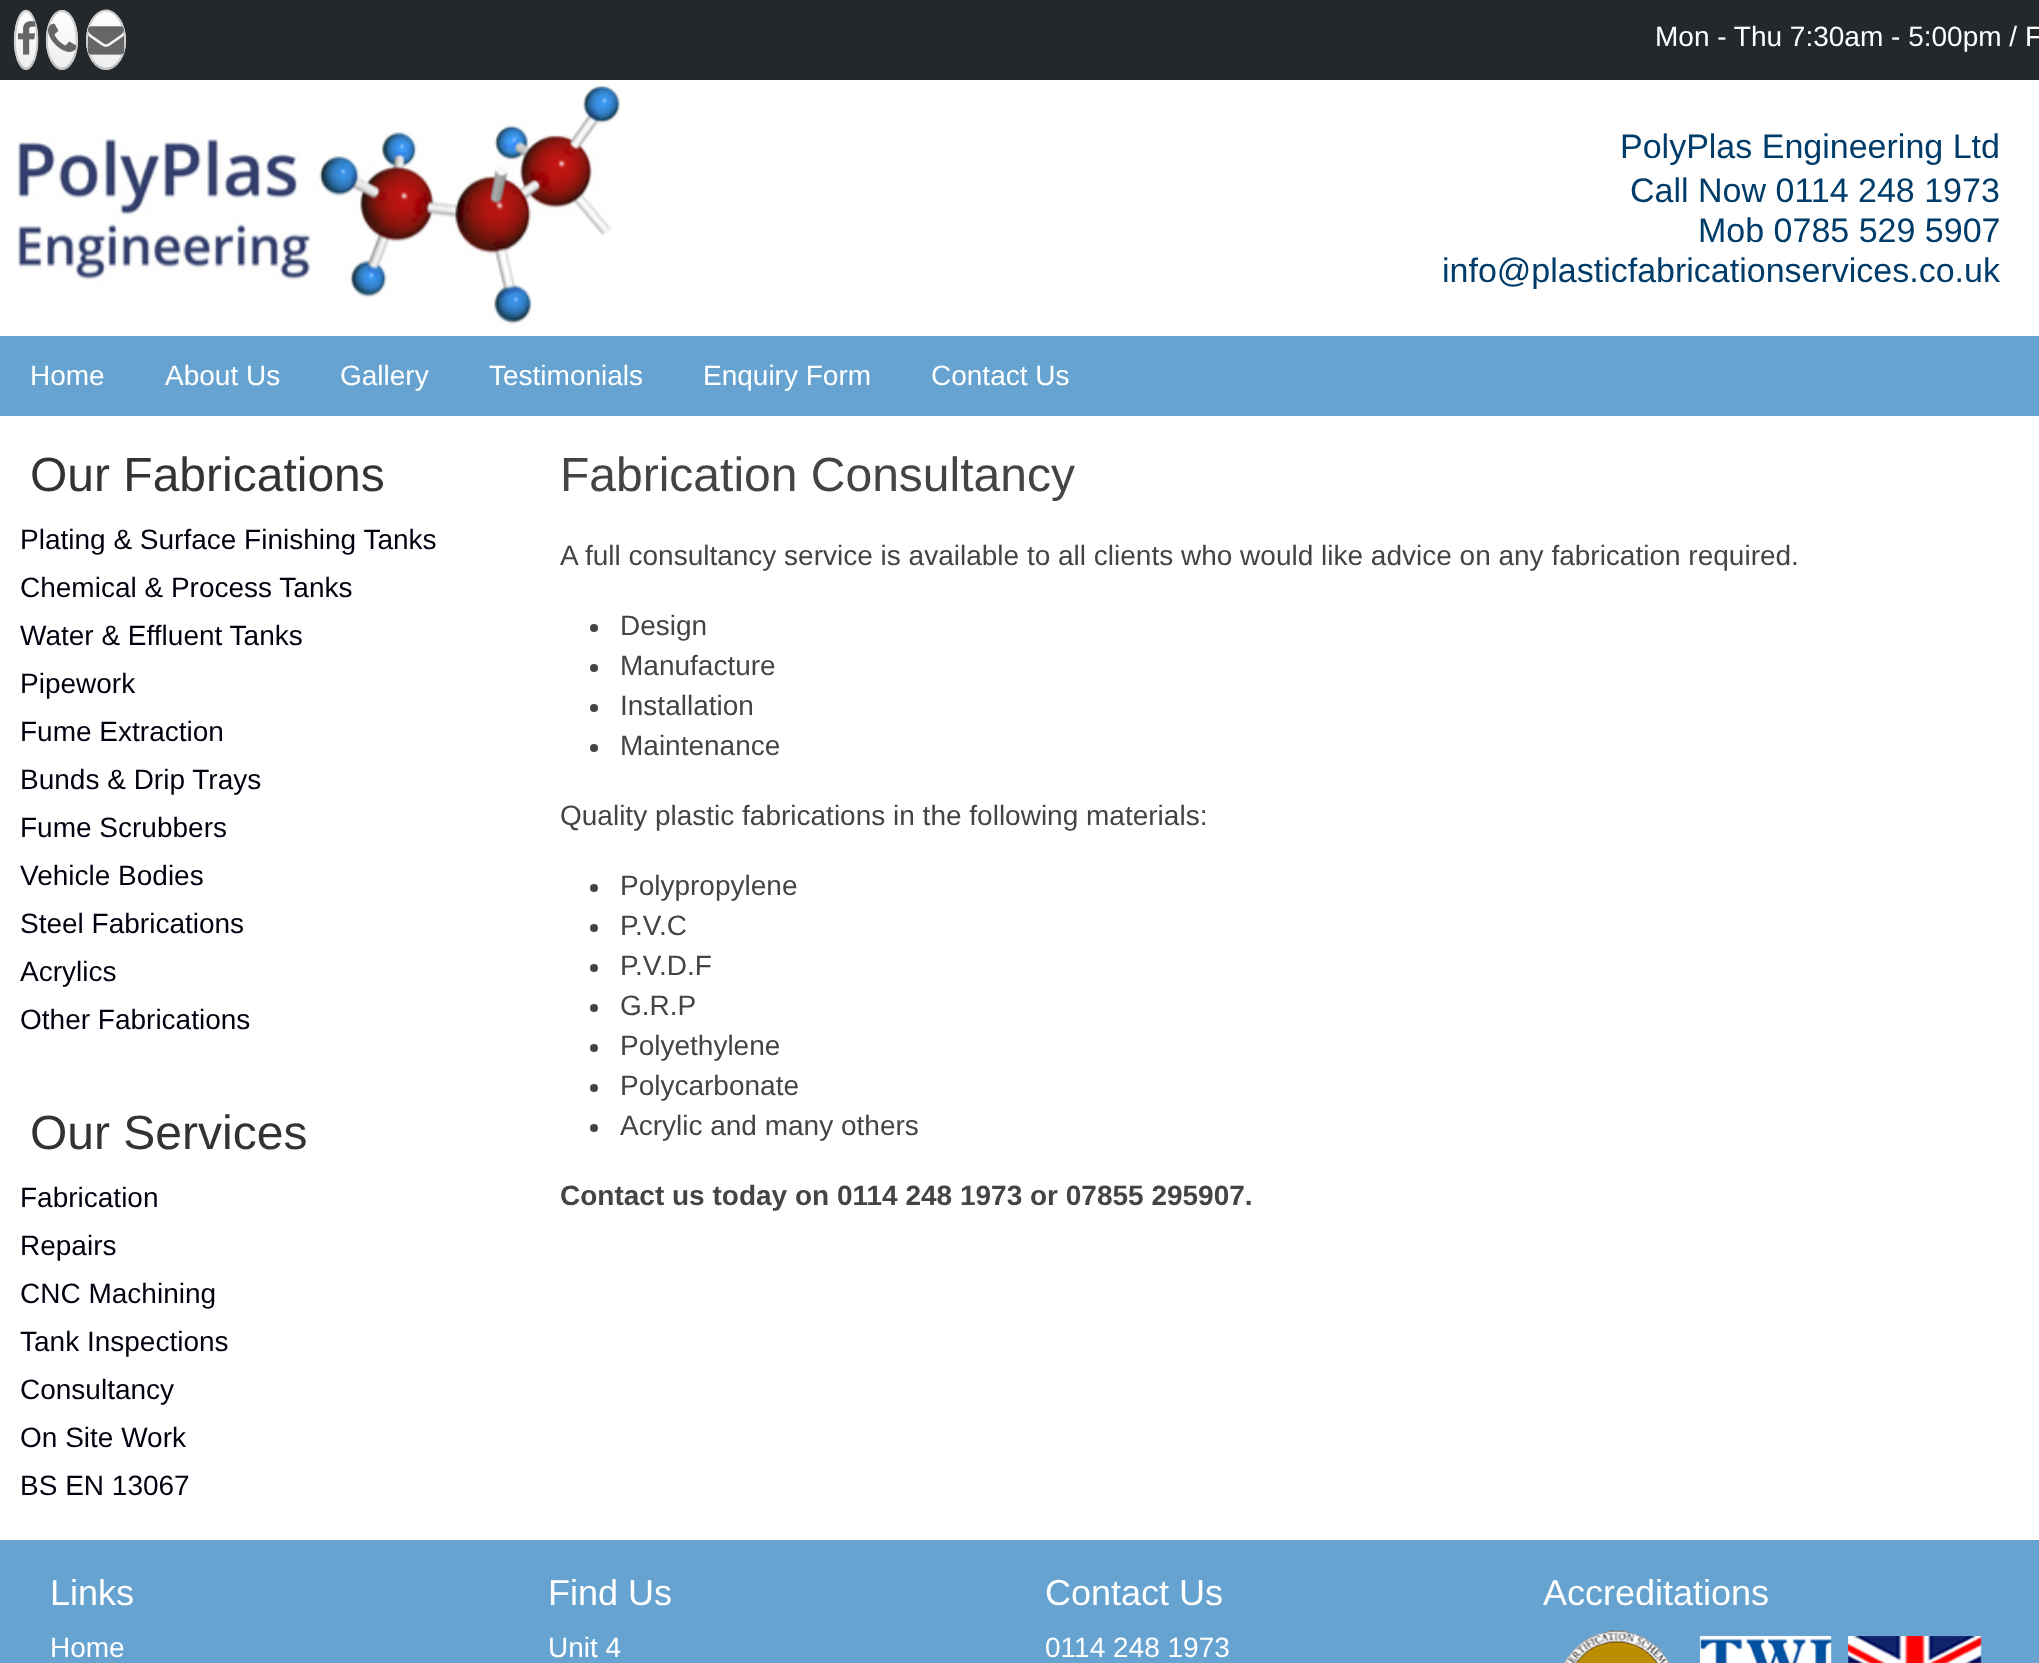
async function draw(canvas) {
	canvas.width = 2039;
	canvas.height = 1663;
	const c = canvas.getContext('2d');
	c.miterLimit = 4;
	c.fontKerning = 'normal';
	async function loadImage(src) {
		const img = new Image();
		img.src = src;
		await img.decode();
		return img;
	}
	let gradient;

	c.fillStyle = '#fff';
	c.fillRect(0, 0, 2039, 1663);
	c.fillStyle = '#23282d';
	c.fillRect(0, 0, 2039, 80);
	gradient = c.createLinearGradient(26, 10, 26, 70);
	gradient.addColorStop(0, '#fff');
	gradient.addColorStop(1, '#eee');
	c.fillStyle = gradient;
	c.beginPath();
	c.ellipse(26, 40, 12, 30, 0, 0, 2 * Math.PI);
	c.fill();
	c.beginPath();
	c.moveTo(34, 60.5);
	c.bezierCurveTo(29.5, 71.5, 22.5, 71.5, 18, 60.5);
	c.strokeStyle = '#bbb';
	c.lineWidth = 2;
	c.stroke();
	c.beginPath();
	c.moveTo(18, 60.5);
	c.bezierCurveTo(14.5, 50.5, 14, 39, 16, 29);
	c.bezierCurveTo(17, 22, 23.5, 1, 32, 16);
	c.bezierCurveTo(39, 27.5, 38.5, 48, 34, 60.5);
	c.strokeStyle = '#ccc';
	c.stroke();
	c.drawImage(await loadImage('img1.png'), 17, 21, 19, 34);
	gradient = c.createLinearGradient(62, 10, 62, 70);
	gradient.addColorStop(0, '#fff');
	gradient.addColorStop(1, '#eee');
	c.fillStyle = gradient;
	c.beginPath();
	c.ellipse(62, 40, 16, 30, 0, 0, 2 * Math.PI);
	c.fill();
	c.beginPath();
	c.moveTo(72.5, 60.5);
	c.bezierCurveTo(67, 71.5, 57, 71.5, 51.5, 60.5);
	c.strokeStyle = '#bbb';
	c.stroke();
	c.beginPath();
	c.moveTo(51.5, 60.5);
	c.bezierCurveTo(47, 52, 46, 41, 47.5, 31.5);
	c.bezierCurveTo(48.5, 25.5, 50.5, 19, 55, 14.5);
	c.bezierCurveTo(62.5, 6.5, 70.5, 14, 73.5, 21.5);
	c.bezierCurveTo(75.5, 25.5, 76.5, 30, 76.5, 34.5);
	c.bezierCurveTo(77.5, 43, 76.5, 52.5, 72.5, 60.5);
	c.strokeStyle = '#ccc';
	c.stroke();
	c.drawImage(await loadImage('img2.png'), 48, 23, 29, 29);
	gradient = c.createLinearGradient(106, 10, 106, 70);
	gradient.addColorStop(0, '#fff');
	gradient.addColorStop(1, '#eee');
	c.fillStyle = gradient;
	c.beginPath();
	c.ellipse(106, 40, 20, 30, 0, 0, 2 * Math.PI);
	c.fill();
	c.beginPath();
	c.moveTo(119.5, 60.5);
	c.bezierCurveTo(112, 71.5, 100, 71.5, 92.5, 60.5);
	c.strokeStyle = '#bbb';
	c.stroke();
	c.beginPath();
	c.moveTo(92.5, 60.5);
	c.bezierCurveTo(87, 52, 86, 41, 88, 31.5);
	c.bezierCurveTo(89, 25, 92, 18.5, 97, 14.5);
	c.bezierCurveTo(111.5, 2.5, 123, 21.5, 124.5, 34.5);
	c.bezierCurveTo(126, 43, 124.5, 53, 119.5, 60.5);
	c.strokeStyle = '#ccc';
	c.stroke();
	c.drawImage(await loadImage('img3.png'), 88, 26, 36, 29);
	c.font = '28px Liberation Sans';
	c.fillStyle = '#fff';
	c.fillText('Mon - Thu 7:30am - 5:00pm / F', 1655, 46);
	c.drawImage(await loadImage('img4.png'), 18, 85, 603, 239);
	c.font = '34px Liberation Sans';
	c.fillStyle = '#003c69';
	for (const [text, x, y] of [
		['PolyPlas Engineering Ltd', 1620, 158],
		['Call Now 0114 248 1973', 1630, 202],
		['Mob 0785 529 5907', 1698, 242],
		['info@plasticfabricationservices.co.uk', 1442, 282],
	]) {
		c.fillText(text, x, y);
	}
	c.fillStyle = '#66a3d0';
	c.fillRect(0, 336, 2039, 80);
	c.font = '28px Liberation Sans';
	c.fillStyle = '#fff';
	for (const [text, x, y] of [
		['Home', 30, 385],
		['About Us', 165, 385],
		['Gallery', 340, 385],
		['Testimonials', 489, 385],
		['Enquiry Form', 703, 385],
		['Contact Us', 931, 385],
	]) {
		c.fillText(text, x, y);
	}
	c.font = '48px Liberation Sans';
	c.fillStyle = '#333';
	c.fillText('Our Fabrications', 30, 491);
	c.font = '28px Liberation Sans';
	c.fillStyle = '#00000e';
	for (const [text, x, y] of [
		['Plating & Surface Finishing Tanks', 20, 549],
		['Chemical & Process Tanks', 20, 597],
		['Water & Effluent Tanks', 20, 645],
		['Pipework', 20, 693],
		['Fume Extraction', 20, 741],
		['Bunds & Drip Trays', 20, 789],
		['Fume Scrubbers', 20, 837],
		['Vehicle Bodies', 20, 885],
		['Steel Fabrications', 20, 933],
		['Acrylics', 20, 981],
		['Other Fabrications', 20, 1029],
	]) {
		c.fillText(text, x, y);
	}
	c.font = '48px Liberation Sans';
	c.fillStyle = '#333';
	c.fillText('Our Services', 30, 1149);
	c.font = '28px Liberation Sans';
	c.fillStyle = '#00000e';
	for (const [text, x, y] of [
		['Fabrication', 20, 1207],
		['Repairs', 20, 1255],
		['CNC Machining', 20, 1303],
		['Tank Inspections', 20, 1351],
		['Consultancy', 20, 1399],
		['On Site Work', 20, 1447],
		['BS EN 13067', 20, 1495],
	]) {
		c.fillText(text, x, y);
	}
	c.font = '48px Liberation Sans';
	c.fillStyle = '#444';
	c.fillText('Fabrication Consultancy', 560, 491);
	c.font = '28px Liberation Sans';
	c.fillText('A full consultancy service is available to all clients who would like advice on any fabrication required.', 560, 565);
	c.beginPath();
	c.arc(594, 628, 4, 0, 2 * Math.PI);
	c.fill();
	c.fillText('Design', 620, 635);
	c.beginPath();
	c.arc(594, 668, 4, 0, 2 * Math.PI);
	c.fill();
	c.fillText('Manufacture', 620, 675);
	c.beginPath();
	c.arc(594, 708, 4, 0, 2 * Math.PI);
	c.fill();
	c.fillText('Installation', 620, 715);
	c.beginPath();
	c.arc(594, 748, 4, 0, 2 * Math.PI);
	c.fill();
	c.fillText('Maintenance', 620, 755);
	c.fillText('Quality plastic fabrications in the following materials:', 560, 825);
	c.beginPath();
	c.arc(594, 888, 4, 0, 2 * Math.PI);
	c.fill();
	c.fillText('Polypropylene', 620, 895);
	c.beginPath();
	c.arc(594, 928, 4, 0, 2 * Math.PI);
	c.fill();
	c.fillText('P.V.C', 620, 935);
	c.beginPath();
	c.arc(594, 968, 4, 0, 2 * Math.PI);
	c.fill();
	c.fillText('P.V.D.F', 620, 975);
	c.beginPath();
	c.arc(594, 1008, 4, 0, 2 * Math.PI);
	c.fill();
	c.fillText('G.R.P', 620, 1015);
	c.beginPath();
	c.arc(594, 1048, 4, 0, 2 * Math.PI);
	c.fill();
	c.fillText('Polyethylene', 620, 1055);
	c.beginPath();
	c.arc(594, 1088, 4, 0, 2 * Math.PI);
	c.fill();
	c.fillText('Polycarbonate', 620, 1095);
	c.beginPath();
	c.arc(594, 1128, 4, 0, 2 * Math.PI);
	c.fill();
	c.fillText('Acrylic and many others', 620, 1135);
	c.font = 'bold 28px Liberation Sans';
	c.fillText('Contact us today on 0114 248 1973 or 07855 295907.', 560, 1205);
	c.fillStyle = '#66a3d0';
	c.fillRect(0, 1540, 2039, 123);
	c.font = '36px Liberation Sans';
	c.fillStyle = '#fff';
	c.fillText('Links', 50, 1605);
	c.font = '28px Liberation Sans';
	c.fillText('Home', 50, 1657);
	c.font = '36px Liberation Sans';
	c.fillText('Find Us', 548, 1605);
	c.font = '28px Liberation Sans';
	c.fillText('Unit 4', 548, 1657);
	c.font = '36px Liberation Sans';
	c.fillText('Contact Us', 1045, 1605);
	c.font = '28px Liberation Sans';
	c.fillText('0114 248 1973', 1045, 1657);
	c.font = '36px Liberation Sans';
	c.fillText('Accreditations', 1543, 1605);
	c.drawImage(await loadImage('img5.png'), 1563, 1630, 107, 33);
	c.drawImage(await loadImage('img6.png'), 1699, 1635, 133, 28);
	c.drawImage(await loadImage('img7.png'), 1848, 1636, 134, 27);
}

draw(document.querySelector('canvas'));
